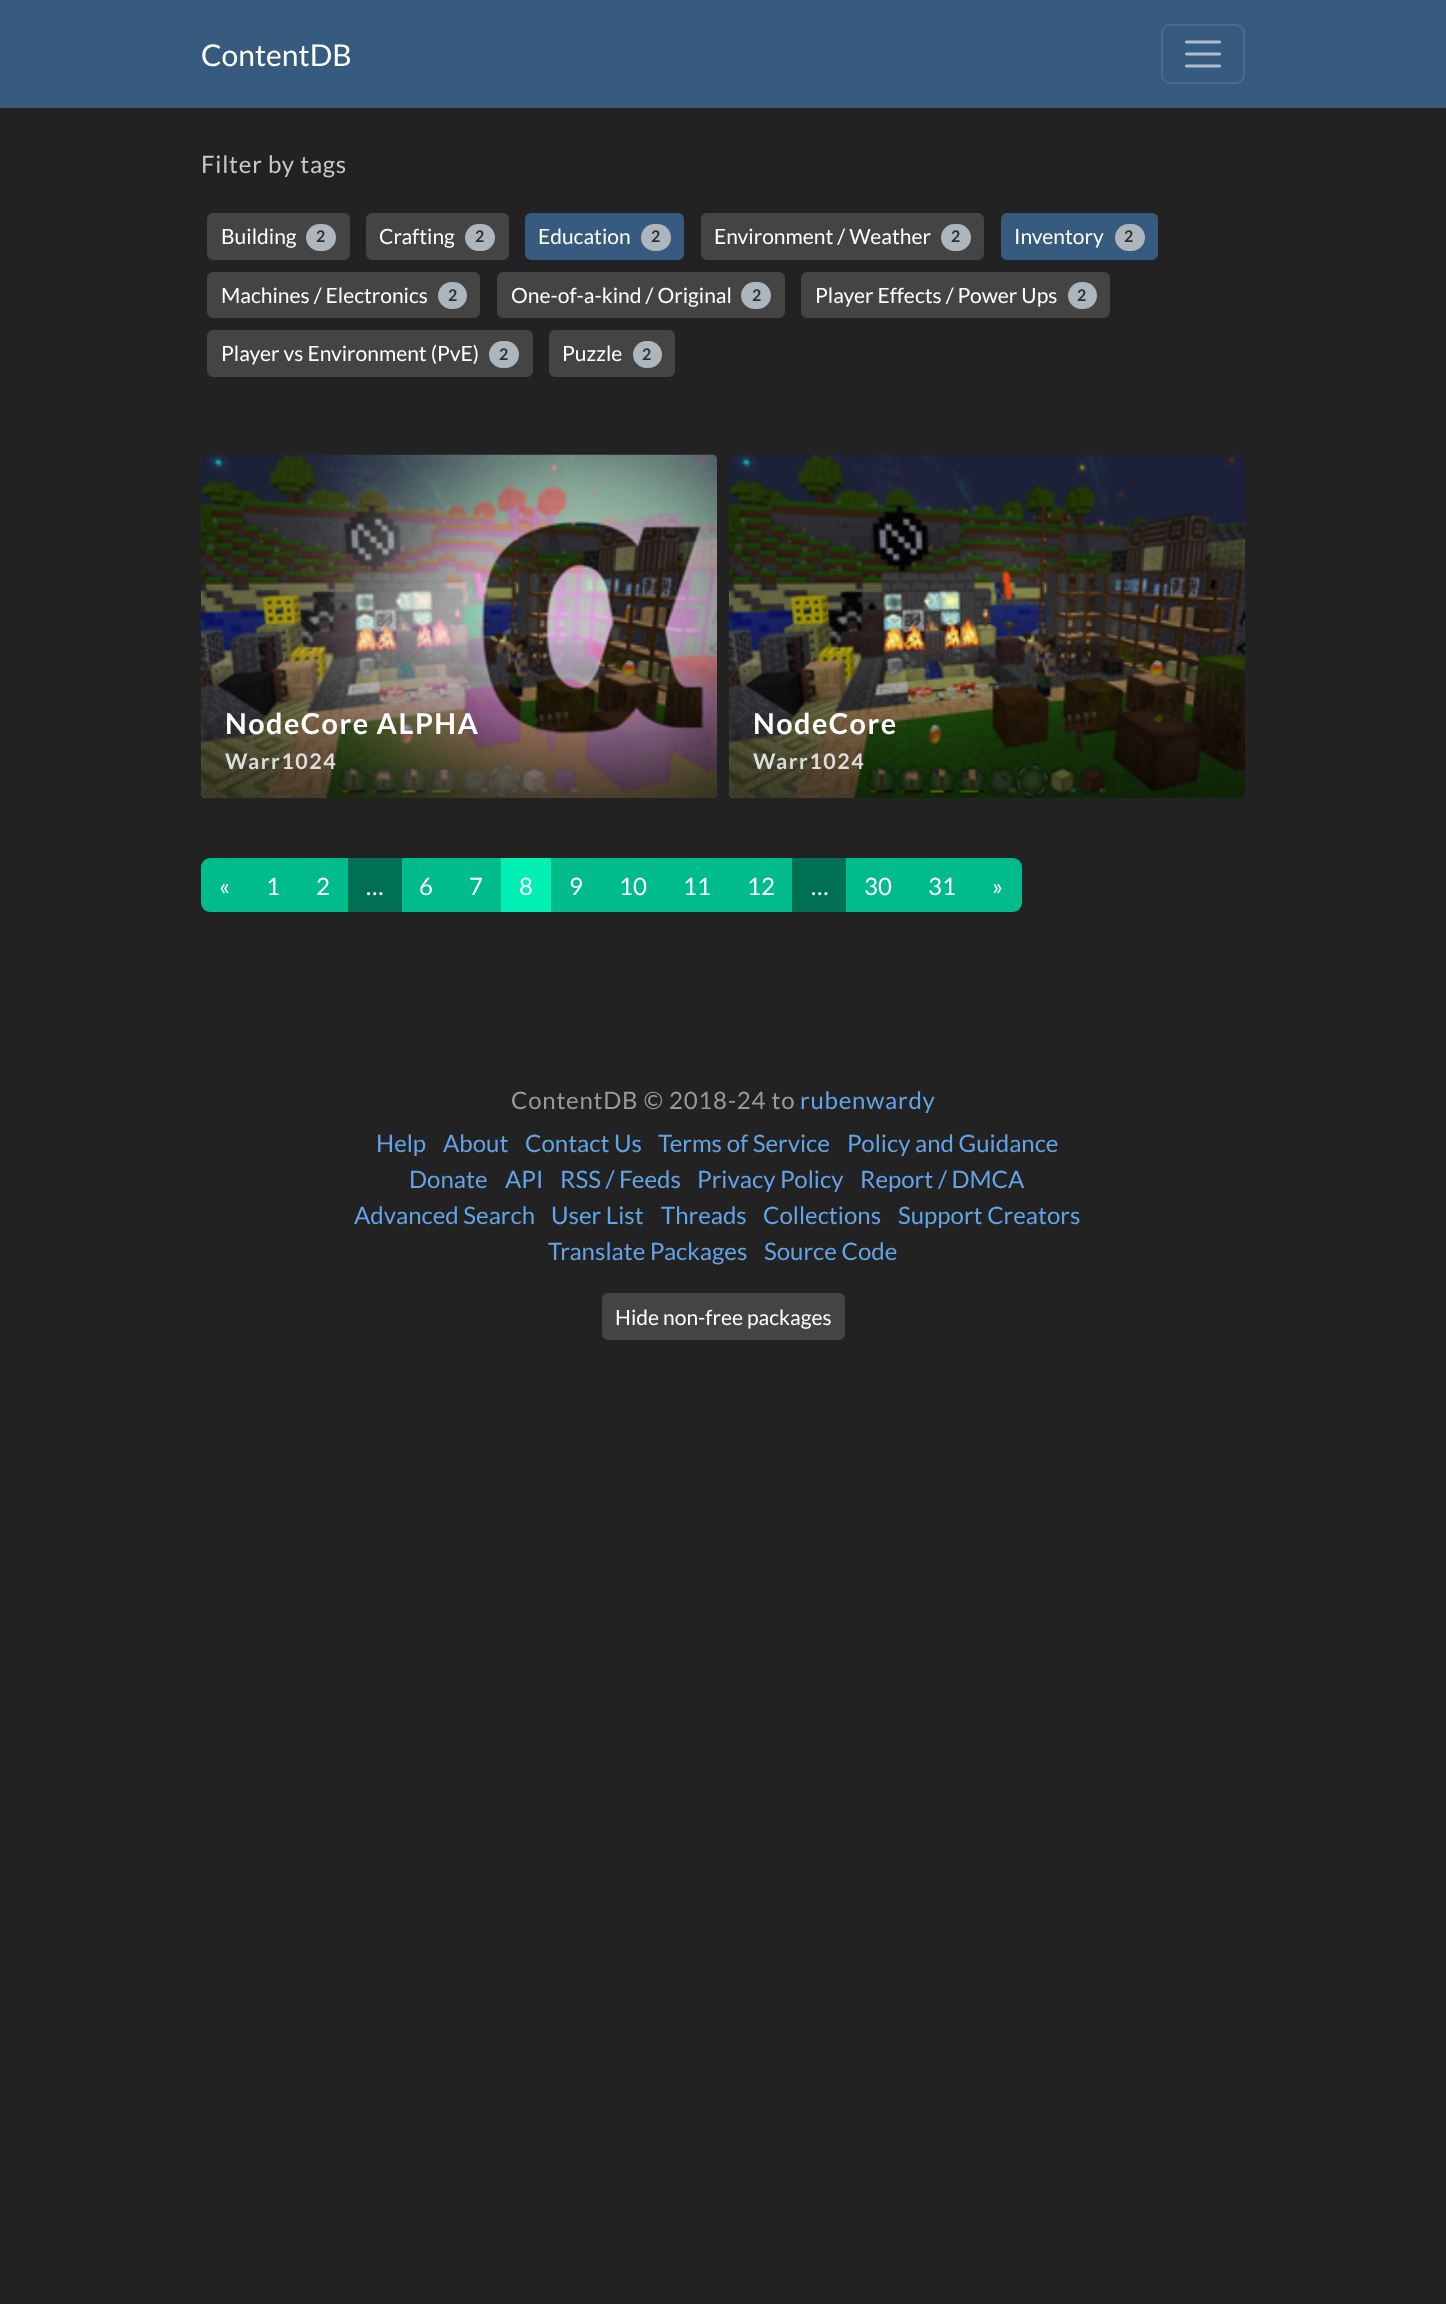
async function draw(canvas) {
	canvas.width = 1446;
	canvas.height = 2304;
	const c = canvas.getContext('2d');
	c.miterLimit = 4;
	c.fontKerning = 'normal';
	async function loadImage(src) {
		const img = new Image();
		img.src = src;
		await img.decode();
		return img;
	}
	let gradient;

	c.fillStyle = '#222';
	c.fillRect(0, 0, 1446, 2304);
	c.fillStyle = '#375a7f';
	c.fillRect(0, 0, 1446, 108);
	c.font = '30px Lato';
	c.fillStyle = '#fff';
	c.fillText('ContentDB', 201, 66);
	c.beginPath();
	c.roundRect(1162, 25, 82, 58, 8);
	c.strokeStyle = '#4b6b8c';
	c.lineWidth = 2;
	c.stroke();
	c.beginPath();
	c.moveTo(1186.5, 42);
	c.lineTo(1219.5, 42);
	c.moveTo(1186.5, 54);
	c.lineTo(1219.5, 54);
	c.moveTo(1186.5, 66);
	c.lineTo(1219.5, 66);
	c.strokeStyle = '#afbdcc';
	c.lineWidth = 3;
	c.lineCap = 'round';
	c.stroke();
	c.letterSpacing = '0.75px';
	c.font = '24px Lato';
	c.fillStyle = '#c8c8c8';
	c.fillText('Filter by tags', 201, 173);
	c.fillStyle = '#444';
	c.beginPath();
	c.roundRect(208, 214, 141, 45, 5);
	c.fill();
	c.strokeStyle = '#444';
	c.lineWidth = 2;
	c.stroke();
	c.letterSpacing = '0px';
	c.font = '21px Lato';
	c.fillStyle = '#fff';
	c.fillText('Building', 221, 244);
	c.fillStyle = '#adb5bd';
	c.beginPath();
	c.roundRect(306, 224, 30, 27, 13.5);
	c.fill();
	c.font = 'bold 16px Lato';
	c.fillStyle = '#303030';
	c.fillText('2', 316, 242);
	c.fillStyle = '#444';
	c.beginPath();
	c.roundRect(367, 214, 141, 45, 5);
	c.fill();
	c.stroke();
	c.font = '21px Lato';
	c.fillStyle = '#fff';
	c.fillText('Crafting', 379, 244);
	c.fillStyle = '#adb5bd';
	c.beginPath();
	c.roundRect(465, 224, 30, 27, 13.5);
	c.fill();
	c.font = 'bold 16px Lato';
	c.fillStyle = '#303030';
	c.fillText('2', 475, 242);
	c.fillStyle = '#375a7f';
	c.beginPath();
	c.roundRect(526, 214, 157, 45, 5);
	c.fill();
	c.strokeStyle = '#375a7f';
	c.stroke();
	c.font = '21px Lato';
	c.fillStyle = '#fff';
	c.fillText('Education', 538, 244);
	c.fillStyle = '#adb5bd';
	c.beginPath();
	c.roundRect(641, 224, 30, 27, 13.5);
	c.fill();
	c.font = 'bold 16px Lato';
	c.fillStyle = '#303030';
	c.fillText('2', 651, 242);
	c.fillStyle = '#444';
	c.beginPath();
	c.roundRect(702, 214, 281, 45, 5);
	c.fill();
	c.strokeStyle = '#444';
	c.stroke();
	c.font = '21px Lato';
	c.fillStyle = '#fff';
	c.fillText('Environment / Weather', 714, 244);
	c.fillStyle = '#adb5bd';
	c.beginPath();
	c.roundRect(941, 224, 30, 27, 13.5);
	c.fill();
	c.font = 'bold 16px Lato';
	c.fillStyle = '#303030';
	c.fillText('2', 951, 242);
	c.fillStyle = '#375a7f';
	c.beginPath();
	c.roundRect(1002, 214, 155, 45, 5);
	c.fill();
	c.strokeStyle = '#375a7f';
	c.stroke();
	c.font = '21px Lato';
	c.fillStyle = '#fff';
	c.fillText('Inventory', 1014, 244);
	c.fillStyle = '#adb5bd';
	c.beginPath();
	c.roundRect(1115, 224, 30, 27, 13.5);
	c.fill();
	c.font = 'bold 16px Lato';
	c.fillStyle = '#303030';
	c.fillText('2', 1124, 242);
	c.fillStyle = '#444';
	c.beginPath();
	c.roundRect(208, 273, 271, 44, 5);
	c.fill();
	c.strokeStyle = '#444';
	c.stroke();
	c.font = '21px Lato';
	c.fillStyle = '#fff';
	c.fillText('Machines / Electronics', 221, 303);
	c.fillStyle = '#adb5bd';
	c.beginPath();
	c.roundRect(438, 282, 29, 27, 13.5);
	c.fill();
	c.font = 'bold 16px Lato';
	c.fillStyle = '#303030';
	c.fillText('2', 448, 301);
	c.fillStyle = '#444';
	c.beginPath();
	c.roundRect(498, 273, 286, 44, 5);
	c.fill();
	c.stroke();
	c.font = '21px Lato';
	c.fillStyle = '#fff';
	c.fillText('One-of-a-kind / Original', 511, 303);
	c.fillStyle = '#adb5bd';
	c.beginPath();
	c.roundRect(741, 282, 30, 27, 13.5);
	c.fill();
	c.font = 'bold 16px Lato';
	c.fillStyle = '#303030';
	c.fillText('2', 752, 301);
	c.fillStyle = '#444';
	c.beginPath();
	c.roundRect(802, 273, 307, 44, 5);
	c.fill();
	c.stroke();
	c.font = '21px Lato';
	c.fillStyle = '#fff';
	c.fillText('Player Effects / Power Ups', 815, 303);
	c.fillStyle = '#adb5bd';
	c.beginPath();
	c.roundRect(1068, 282, 29, 27, 13.5);
	c.fill();
	c.font = 'bold 16px Lato';
	c.fillStyle = '#303030';
	c.fillText('2', 1077, 301);
	c.fillStyle = '#444';
	c.beginPath();
	c.roundRect(208, 331, 324, 45, 5);
	c.fill();
	c.stroke();
	c.font = '21px Lato';
	c.fillStyle = '#fff';
	c.fillText('Player vs Environment (PvE)', 221, 361);
	c.fillStyle = '#adb5bd';
	c.beginPath();
	c.roundRect(489, 341, 30, 27, 13.5);
	c.fill();
	c.font = 'bold 16px Lato';
	c.fillStyle = '#303030';
	c.fillText('2', 499, 360);
	c.fillStyle = '#444';
	c.beginPath();
	c.roundRect(550, 331, 124, 45, 5);
	c.fill();
	c.stroke();
	c.font = '21px Lato';
	c.fillStyle = '#fff';
	c.fillText('Puzzle', 562, 361);
	c.fillStyle = '#adb5bd';
	c.beginPath();
	c.roundRect(633, 341, 29, 27, 13.5);
	c.fill();
	c.font = 'bold 16px Lato';
	c.fillStyle = '#303030';
	c.fillText('2', 642, 360);
	c.drawImage(await loadImage('img1.png'), 201, 454, 516, 344);
	gradient = c.createLinearGradient(459, 627, 459, 798);
	gradient.addColorStop(0, '#00000000');
	gradient.addColorStop(1, '#00000080');
	c.fillStyle = gradient;
	c.beginPath();
	c.roundRect(201, 627, 516, 171, [0, 0, 5, 5]);
	c.fill();
	c.letterSpacing = '1.5px';
	c.font = 'bold 28.75px Lato';
	c.fillStyle = '#fff';
	c.fillText('NodeCore ALPHA', 225, 734);
	c.font = 'bold 21.5px Lato';
	c.fillStyle = '#ddd';
	c.fillText('Warr1024', 225, 769);
	c.drawImage(await loadImage('img2.png'), 729, 454, 516, 344);
	gradient = c.createLinearGradient(987, 627, 987, 798);
	gradient.addColorStop(0, '#00000000');
	gradient.addColorStop(1, '#00000080');
	c.fillStyle = gradient;
	c.beginPath();
	c.roundRect(729, 627, 516, 171, [0, 0, 5, 5]);
	c.fill();
	c.font = 'bold 28.75px Lato';
	c.fillStyle = '#fff';
	c.fillText('NodeCore', 753, 734);
	c.font = 'bold 21.5px Lato';
	c.fillStyle = '#ddd';
	c.fillText('Warr1024', 753, 769);
	c.fillStyle = '#00bc8c';
	c.beginPath();
	c.roundRect(201, 858, 47, 54, [9, 0, 0, 9]);
	c.fill();
	c.letterSpacing = '0px';
	c.font = '24px Lato';
	c.fillStyle = '#fff';
	c.fillText('«', 219, 895);
	c.fillStyle = '#00bc8c';
	c.fillRect(248, 858, 100, 54);
	c.fillStyle = '#fff';
	c.fillText('1', 266, 895);
	c.fillText('2', 316, 895);
	c.fillStyle = '#007053';
	c.fillRect(348, 858, 54, 54);
	c.fillStyle = '#fff';
	c.fillText('…', 366, 895);
	c.fillStyle = '#00bc8c';
	c.fillRect(402, 858, 99, 54);
	c.fillStyle = '#fff';
	c.fillText('6', 419, 895);
	c.fillText('7', 469, 895);
	c.fillStyle = '#00efb2';
	c.fillRect(501, 858, 50, 54);
	c.fillStyle = '#fff';
	c.fillText('8', 519, 895);
	c.fillStyle = '#00bc8c';
	c.fillRect(551, 858, 241, 54);
	c.fillStyle = '#fff';
	for (const [text, x, y] of [
		['9', 569, 895],
		['10', 619, 895],
		['11', 683, 895],
		['12', 747, 895],
	]) {
		c.fillText(text, x, y);
	}
	c.fillStyle = '#007053';
	c.fillRect(792, 858, 54, 54);
	c.fillStyle = '#fff';
	c.fillText('…', 811, 895);
	c.fillStyle = '#00bc8c';
	c.fillRect(846, 858, 128, 54);
	c.fillStyle = '#fff';
	c.fillText('30', 864, 895);
	c.fillText('31', 928, 895);
	c.fillStyle = '#00bc8c';
	c.beginPath();
	c.roundRect(974, 858, 48, 54, [0, 9, 9, 0]);
	c.fill();
	c.fillStyle = '#fff';
	c.fillText('»', 992, 895);
	c.letterSpacing = '0.75px';
	c.fillStyle = '#999';
	c.fillText('ContentDB © 2018-24 to', 511, 1109);
	c.fillStyle = '#63a3e6';
	c.fillText('rubenwardy', 800, 1109);
	c.letterSpacing = '0px';
	for (const [text, x, y] of [
		['Help', 376, 1152],
		['About', 443, 1152],
		['Contact Us', 525, 1152],
		['Terms of Service', 658, 1152],
		['Policy and Guidance', 847, 1152],
		['Donate', 409, 1188],
		['API', 505, 1188],
		['RSS / Feeds', 560, 1188],
		['Privacy Policy', 697, 1188],
		['Report / DMCA', 860, 1188],
		['Advanced Search', 354, 1224],
		['User List', 551, 1224],
		['Threads', 661, 1224],
		['Collections', 763, 1224],
		['Support Creators', 898, 1224],
		['Translate Packages', 548, 1260],
		['Source Code', 764, 1260],
	]) {
		c.fillText(text, x, y);
	}
	c.fillStyle = '#444';
	c.beginPath();
	c.roundRect(603, 1294, 241, 45, 5);
	c.fill();
	c.stroke();
	c.font = '21px Lato';
	c.fillStyle = '#fff';
	c.fillText('Hide non-free packages', 615, 1325);
}

draw(document.querySelector('canvas'));
